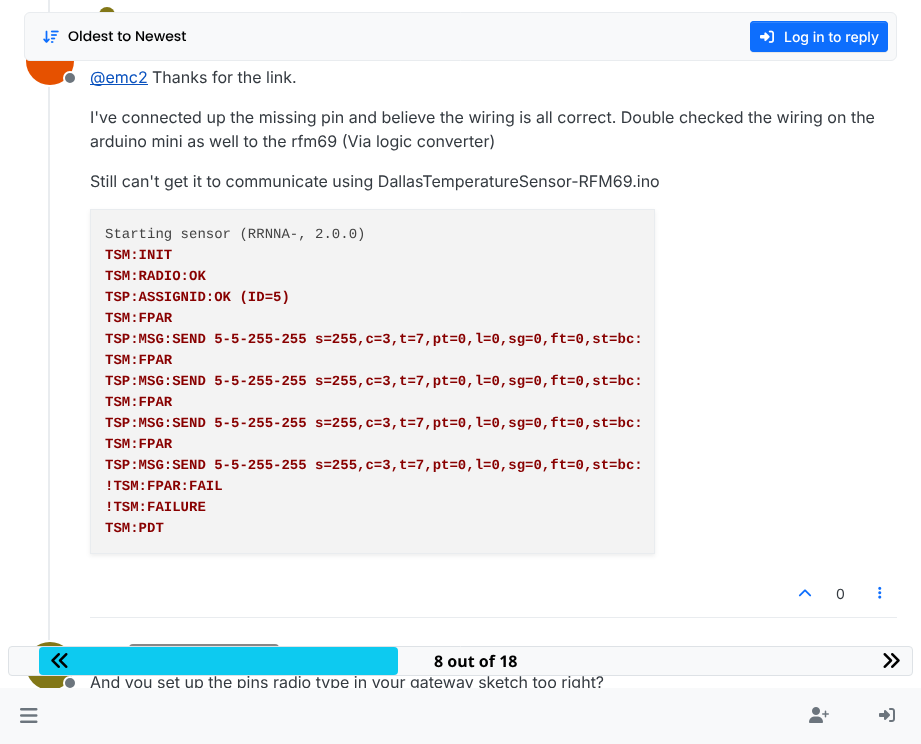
async function draw(canvas) {
	canvas.width = 921;
	canvas.height = 744;
	const c = canvas.getContext('2d');
	c.miterLimit = 4;
	c.fontKerning = 'normal';
	async function loadImage(src) {
		const img = new Image();
		img.src = src;
		await img.decode();
		return img;
	}

	c.fillStyle = '#fff';
	c.fillRect(0, 0, 921, 744);
	c.fillStyle = '#e9ecef';
	c.fillRect(48, 0, 2, 643);
	c.fillStyle = '#827717';
	c.beginPath();
	c.arc(107, 15, 8, 0, 2 * Math.PI);
	c.fill();
	c.beginPath();
	c.arc(50, 61, 25, 0, 2 * Math.PI);
	c.strokeStyle = '#fff';
	c.lineWidth = 2;
	c.stroke();
	c.fillStyle = '#e65100';
	c.beginPath();
	c.arc(50, 61, 24, 0, 2 * Math.PI);
	c.fill();
	c.fillStyle = '#f8f9fa';
	c.beginPath();
	c.roundRect(24.5, 12.5, 872, 48, 5.5);
	c.fill();
	c.strokeStyle = '#e9ecef';
	c.lineWidth = 1;
	c.stroke();
	c.drawImage(await loadImage('img1.png'), 43, 30, 16, 13);
	c.font = '500 14px Poppins';
	c.fillStyle = '#000';
	c.fillText('Oldest to Newest', 68, 41);
	c.fillStyle = '#00000012';
	c.filter = 'blur(0.5px)';
	c.beginPath();
	c.roundRect(750, 22, 138, 31, 4);
	c.fill();
	c.filter = 'none';
	c.fillStyle = '#0d6efd';
	c.beginPath();
	c.roundRect(750, 21, 138, 31, 4);
	c.fill();
	c.fillStyle = '#3184fd';
	c.beginPath();
	c.moveTo(754, 23);
	c.lineTo(884, 23);
	c.bezierCurveTo(886, 23, 887, 24, 887, 26);
	c.bezierCurveTo(887, 24, 887, 22, 885, 22);
	c.lineTo(753, 22);
	c.bezierCurveTo(751, 22, 751, 24, 751, 26);
	c.bezierCurveTo(751, 24, 752, 23, 754, 23);
	c.closePath();
	c.fill();
	c.beginPath();
	c.roundRect(750.5, 21.5, 137, 30, 3.5);
	c.strokeStyle = '#0d6efd';
	c.stroke();
	c.drawImage(await loadImage('img2.png'), 760, 30, 14, 13);
	c.font = '500 14px Inter';
	c.fillStyle = '#fff';
	c.fillText('Log in to reply', 784, 42);
	c.fillStyle = '#6c757d';
	c.beginPath();
	c.arc(70, 78, 6, 0, 2 * Math.PI);
	c.fill();
	c.strokeStyle = '#fff';
	c.lineWidth = 2;
	c.stroke();
	c.fillStyle = '#0951be';
	c.fillRect(90, 84, 58, 1);
	c.font = '16px Inter';
	c.fillText('@emc2', 90, 83);
	c.fillStyle = '#343a40';
	for (const [text, x, y] of [
		['Thanks for the link.', 152, 83],
		['I\'ve connected up the missing pin and believe the wiring is all correct. Double checked the wiring on the', 90, 123],
		['arduino mini as well to the rfm69 (Via logic converter)', 90, 147],
		['Still can\'t get it to communicate using DallasTemperatureSensor-RFM69.ino', 90, 187],
	]) {
		c.fillText(text, x, y);
	}
	c.fillStyle = '#00000012';
	c.filter = 'blur(2px)';
	c.beginPath();
	c.rect(90, 211, 565, 345);
	c.fill();
	c.filter = 'none';
	c.strokeStyle = '#e9ecef';
	c.lineWidth = 1;
	c.strokeRect(90.5, 209.5, 564, 344);
	c.fillStyle = '#f3f3f3';
	c.fillRect(91, 210, 563, 343);
	c.font = '14px Liberation Mono';
	c.fillStyle = '#444';
	c.fillText('Starting sensor (RRNNA-, 2.0.0)', 105, 238);
	c.font = 'bold 14px Liberation Mono';
	c.fillStyle = '#800';
	for (const [text, x, y] of [
		['TSM:INIT', 105, 259],
		['TSM:RADIO:OK', 105, 280],
		['TSP:ASSIGNID:OK (ID=5)', 105, 301],
		['TSM:FPAR', 105, 322],
		['TSP:MSG:SEND 5-5-255-255 s=255,c=3,t=7,pt=0,l=0,sg=0,ft=0,st=bc:', 105, 343],
		['TSM:FPAR', 105, 364],
		['TSP:MSG:SEND 5-5-255-255 s=255,c=3,t=7,pt=0,l=0,sg=0,ft=0,st=bc:', 105, 385],
		['TSM:FPAR', 105, 406],
		['TSP:MSG:SEND 5-5-255-255 s=255,c=3,t=7,pt=0,l=0,sg=0,ft=0,st=bc:', 105, 427],
		['TSM:FPAR', 105, 448],
		['TSP:MSG:SEND 5-5-255-255 s=255,c=3,t=7,pt=0,l=0,sg=0,ft=0,st=bc:', 105, 469],
		['!TSM:FPAR:FAIL', 105, 490],
		['!TSM:FAILURE', 105, 511],
		['TSM:PDT', 105, 532],
	]) {
		c.fillText(text, x, y);
	}
	c.fillStyle = '#e9ecef';
	c.fillRect(90, 617, 807, 1);
	c.drawImage(await loadImage('img3.png'), 798, 589, 14, 8);
	c.font = '14px Inter';
	c.fillStyle = '#343a40';
	c.fillText('0', 836, 599);
	c.drawImage(await loadImage('img4.png'), 878, 586, 4, 13);
	c.beginPath();
	c.arc(50, 666, 25, 0, 2 * Math.PI);
	c.strokeStyle = '#fff';
	c.lineWidth = 2;
	c.stroke();
	c.fillStyle = '#827717';
	c.beginPath();
	c.arc(50, 666, 24, 0, 2 * Math.PI);
	c.fill();
	c.fillStyle = '#6c757d';
	c.beginPath();
	c.arc(70, 683, 6, 0, 2 * Math.PI);
	c.fill();
	c.stroke();
	c.fillStyle = '#878787';
	c.beginPath();
	c.roundRect(129, 644, 150, 17, 4);
	c.fill();
	c.font = '16px Inter';
	c.fillStyle = '#343a40';
	c.fillText('And you set up the pins radio type in your gateway sketch too right?', 90, 688);
	c.fillStyle = '#f8f9fa';
	c.beginPath();
	c.roundRect(8.5, 646.5, 904, 29, 3.5);
	c.fill();
	c.strokeStyle = '#dee2e6';
	c.lineWidth = 1;
	c.stroke();
	c.fillStyle = '#0dcaf0';
	c.beginPath();
	c.roundRect(39, 647, 359, 28, 4);
	c.fill();
	c.drawImage(await loadImage('img5.png'), 51, 653, 17, 15);
	c.font = 'bold 16px Noto Sans';
	c.fillStyle = '#000';
	c.fillText('8 out of 18', 434, 667);
	c.drawImage(await loadImage('img6.png'), 883, 653, 17, 15);
	c.fillStyle = '#f8f9fa';
	c.fillRect(0, 688, 921, 56);
	c.drawImage(await loadImage('img7.png'), 20, 708, 18, 15);
	c.drawImage(await loadImage('img8.png'), 809, 707, 20, 16);
	c.drawImage(await loadImage('img9.png'), 879, 708, 16, 14);
}

draw(document.querySelector('canvas'));
